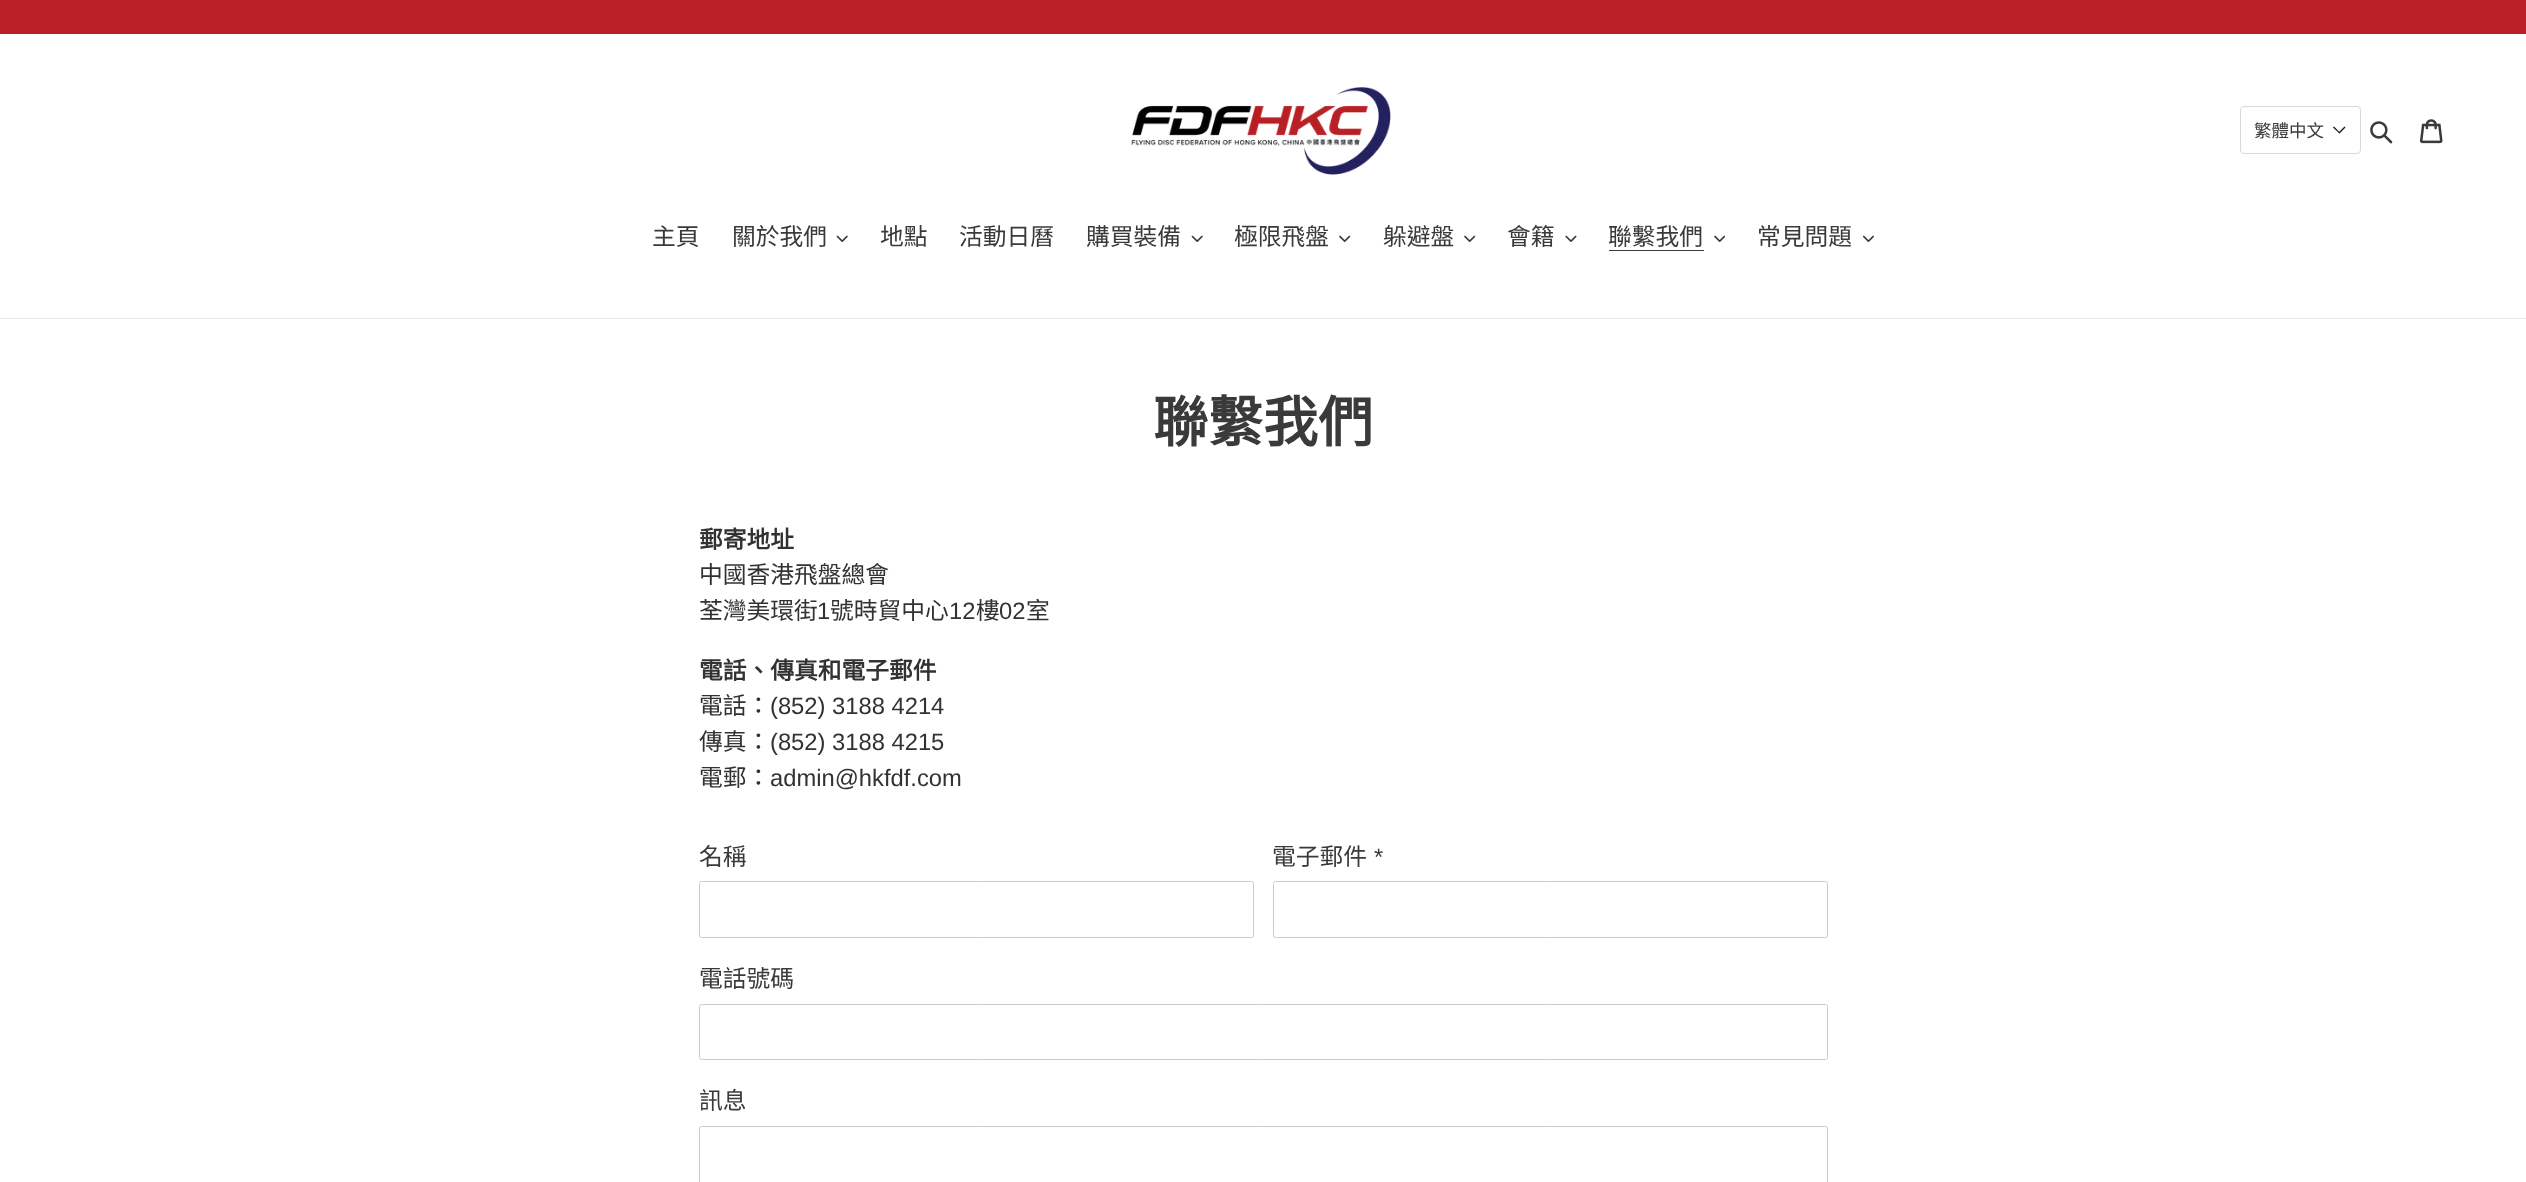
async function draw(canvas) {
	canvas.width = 2526;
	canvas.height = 1182;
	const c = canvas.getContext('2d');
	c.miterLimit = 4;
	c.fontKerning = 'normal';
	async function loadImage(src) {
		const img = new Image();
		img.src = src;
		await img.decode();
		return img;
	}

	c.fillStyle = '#fff';
	c.fillRect(0, 0, 2526, 1182);
	c.fillStyle = '#b92025';
	c.fillRect(0, 0, 2526, 34);
	c.drawImage(await loadImage('img1.png'), 1131, 87, 260, 88);
	c.beginPath();
	c.roundRect(2240.5, 106.5, 120, 47, 3.5);
	c.strokeStyle = '#d9d9d9';
	c.stroke();
	c.font = '17.5px Noto Sans CJK TC';
	c.fillStyle = '#3a3a3a';
	c.fillText('繁體中文', 2254, 137);
	c.fillStyle = '#1a1a1a';
	c.beginPath();
	c.moveTo(2344.5, 126.5);
	c.lineTo(2345.5, 127.5);
	c.lineTo(2339.5, 133.5);
	c.lineTo(2338.5, 132.5);
	c.closePath();
	c.fill();
	c.beginPath();
	c.moveTo(2334, 126.5);
	c.lineTo(2340, 132.5);
	c.lineTo(2339.5, 133.5);
	c.lineTo(2333, 127.5);
	c.closePath();
	c.fill();
	c.drawImage(await loadImage('img2.png'), 2370, 121, 23, 23);
	c.drawImage(await loadImage('img3.png'), 2420, 119, 23, 25);
	c.fillStyle = '#ebebeb';
	c.fillRect(0, 318, 2526, 1);
	c.font = '23.75px Noto Sans CJK TC';
	c.fillStyle = '#3a3a3a';
	c.fillText('主頁', 652, 245);
	c.fillText('關於我們', 732, 245);
	c.drawImage(await loadImage('img4.png'), 836, 235, 12, 7);
	for (const [text, x, y] of [
		['地點', 880, 245],
		['活動日曆', 959, 245],
		['購買裝備', 1086, 245],
	]) {
		c.fillText(text, x, y);
	}
	c.drawImage(await loadImage('img4.png'), 1191, 235, 12, 7);
	c.fillText('極限飛盤', 1234, 245);
	c.drawImage(await loadImage('img5.png'), 1339, 235, 12, 7);
	c.fillText('躲避盤', 1383, 245);
	c.drawImage(await loadImage('img5.png'), 1464, 235, 12, 7);
	c.fillText('會籍', 1507, 245);
	c.drawImage(await loadImage('img6.png'), 1565, 235, 12, 7);
	c.fillText('聯繫我們', 1608, 245);
	c.fillRect(1609, 250, 95, 1);
	c.drawImage(await loadImage('img7.png'), 1714, 235, 11, 7);
	c.fillText('常見問題', 1757, 245);
	c.drawImage(await loadImage('img8.png'), 1863, 235, 11, 7);
	c.font = 'bold 55px Noto Sans CJK TC';
	c.fillText('聯繫我們', 1153, 442);
	c.font = 'bold 23.75px Noto Sans CJK TC';
	c.fillStyle = '#333232';
	c.fillText('郵寄地址', 699, 548);
	c.font = '23.75px Noto Sans CJK TC';
	c.fillText('中國香港飛盤總會', 699, 583);
	c.fillText('荃灣美環街', 699, 619);
	c.font = '23.75px Liberation Sans';
	c.fillText('1', 817, 619);
	c.font = '23.75px Noto Sans CJK TC';
	c.fillText('號時貿中心', 830, 619);
	c.font = '23.75px Liberation Sans';
	c.fillText('12', 949, 619);
	c.font = '23.75px Noto Sans CJK TC';
	c.fillText('樓', 976, 619);
	c.font = '23.75px Liberation Sans';
	c.fillText('02', 999, 619);
	c.font = '23.75px Noto Sans CJK TC';
	c.fillText('室', 1026, 619);
	c.font = 'bold 23.75px Noto Sans CJK TC';
	c.fillText('電話、傳真和電子郵件', 699, 679);
	c.font = '23.75px Noto Sans CJK TC';
	c.fillText('電話：', 699, 714);
	c.font = '23.75px Liberation Sans';
	c.fillText('(852) 3188 4214', 770, 714);
	c.font = '23.75px Noto Sans CJK TC';
	c.fillText('傳真：', 699, 750);
	c.font = '23.75px Liberation Sans';
	c.fillText('(852) 3188 4215', 770, 750);
	c.font = '23.75px Noto Sans CJK TC';
	c.fillText('電郵：', 699, 786);
	c.font = '23.75px Liberation Sans';
	c.fillText('admin@hkfdf.com', 770, 786);
	c.font = '23.75px Noto Sans CJK TC';
	c.fillStyle = '#3a3a3a';
	c.fillText('名稱', 699, 865);
	c.beginPath();
	c.roundRect(699.5, 881.5, 554, 56, 2);
	c.strokeStyle = '#ccc';
	c.stroke();
	c.fillText('電子郵件', 1272, 865);
	c.font = '23.75px Liberation Sans';
	c.fillText('*', 1374, 865);
	c.beginPath();
	c.roundRect(1273.5, 881.5, 554, 56, 2);
	c.stroke();
	c.font = '23.75px Noto Sans CJK TC';
	c.fillText('電話號碼', 699, 987);
	c.beginPath();
	c.roundRect(699.5, 1004.5, 1128, 55, 2);
	c.stroke();
	c.fillText('訊息', 699, 1109);
	c.beginPath();
	c.roundRect(699.5, 1126.5, 1128, 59, 2);
	c.stroke();
}

draw(document.querySelector('canvas'));
